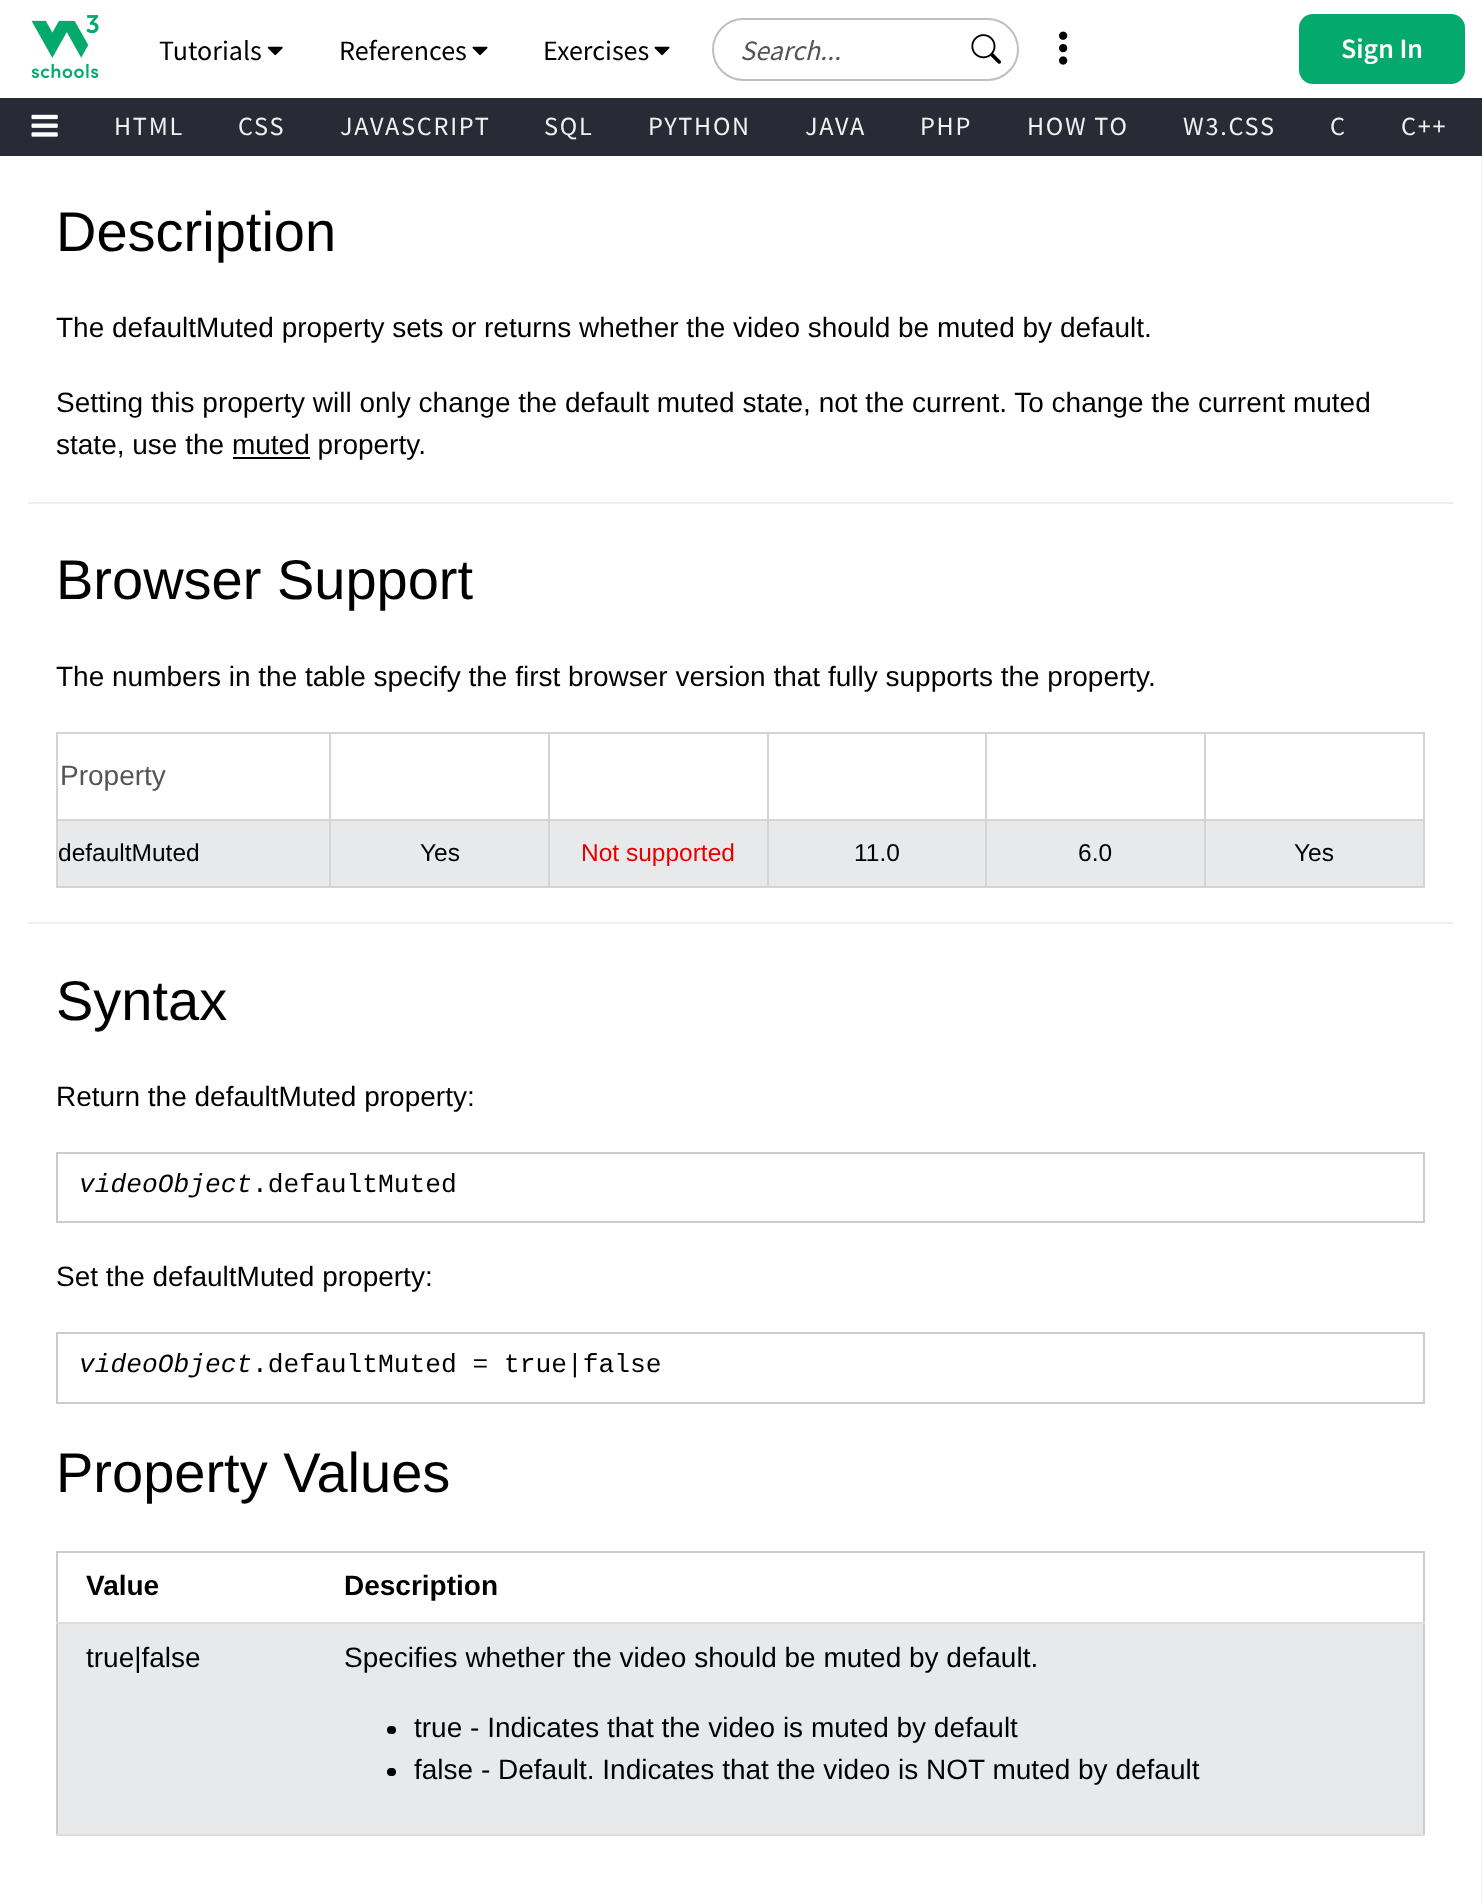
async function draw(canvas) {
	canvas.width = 1482;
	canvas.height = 1903;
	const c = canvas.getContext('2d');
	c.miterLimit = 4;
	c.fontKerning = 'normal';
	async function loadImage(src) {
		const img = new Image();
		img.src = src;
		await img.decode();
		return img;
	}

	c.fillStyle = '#fff';
	c.fillRect(0, 0, 1482, 1903);
	c.drawImage(await loadImage('img1.png'), 31, 15, 68, 64);
	c.font = '28px Source Sans Pro';
	c.fillStyle = '#000';
	c.fillText('Tutorials', 159, 60);
	c.drawImage(await loadImage('img2.png'), 267, 46, 16, 10);
	c.fillText('References', 339, 60);
	c.drawImage(await loadImage('img3.png'), 472, 46, 16, 10);
	c.fillText('Exercises', 543, 60);
	c.drawImage(await loadImage('img3.png'), 654, 46, 16, 10);
	c.beginPath();
	c.roundRect(713, 19, 305, 61, 30.5);
	c.strokeStyle = '#bfbfbf';
	c.lineWidth = 2;
	c.stroke();
	c.font = 'italic 28px Source Sans Pro';
	c.fillStyle = '#555';
	c.fillText('Search...', 740, 60);
	c.drawImage(await loadImage('img4.png'), 971, 34, 30, 30);
	c.drawImage(await loadImage('img5.png'), 1059, 31, 9, 34);
	c.fillStyle = '#04aa6d';
	c.beginPath();
	c.roundRect(1299, 14, 166, 70, 14);
	c.fill();
	c.font = '600 28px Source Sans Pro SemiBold';
	c.fillStyle = '#fff';
	c.fillText('Sign In', 1341, 58);
	c.fillStyle = '#282a35';
	c.fillRect(0, 98, 1482, 58);
	c.drawImage(await loadImage('img6.png'), 31, 114, 27, 23);
	c.letterSpacing = '1.75px';
	c.font = '26.25px Source Sans Pro';
	c.fillStyle = '#f1f1f1';
	for (const [text, x, y] of [
		['HTML', 114, 135],
		['CSS', 238, 135],
		['JAVASCRIPT', 340, 135],
		['SQL', 544, 135],
		['PYTHON', 648, 135],
		['JAVA', 805, 135],
		['PHP', 920, 135],
		['HOW TO', 1027, 135],
		['W3.CSS', 1183, 135],
		['C', 1330, 135],
		['C++', 1401, 135],
	]) {
		c.fillText(text, x, y);
	}
	c.fillRect(1481, 156, 1, 1747);
	c.letterSpacing = '0px';
	c.font = '56px Liberation Sans';
	c.fillStyle = '#000';
	c.fillText('Description', 56, 251);
	c.font = '28px Liberation Sans';
	for (const [text, x, y] of [
		['The defaultMuted property sets or returns whether the video should be muted by default.', 56, 337],
		['Setting this property will only change the default muted state, not the current. To change the current muted', 56, 412],
		['state, use the muted property.', 56, 454],
	]) {
		c.fillText(text, x, y);
	}
	c.fillRect(233, 457, 77, 2);
	c.fillStyle = '#eee';
	c.fillRect(28, 502, 1425, 2);
	c.font = '56px Liberation Sans';
	c.fillStyle = '#000';
	c.fillText('Browser Support', 56, 599);
	c.font = '28px Liberation Sans';
	c.fillText('The numbers in the table specify the first browser version that fully supports the property.', 56, 686);
	for (const [x, y, w, h, color] of [
		[1204, 732, 221, 2, '#d4d4d4'],
		[1204, 819, 221, 2, '#d4d4d4'],
		[58, 821, 1365, 65, '#e7e9eb'],
		[1423, 819, 2, 68, '#d4d4d4'],
		[1204, 886, 221, 2, '#d4d4d4'],
		[1204, 819, 2, 68, '#d4d4d4'],
		[985, 819, 221, 2, '#d4d4d4'],
		[1204, 732, 2, 89, '#d4d4d4'],
		[985, 732, 221, 2, '#d4d4d4'],
		[985, 886, 221, 2, '#d4d4d4'],
		[985, 819, 2, 68, '#d4d4d4'],
		[767, 819, 220, 2, '#d4d4d4'],
		[985, 732, 2, 89, '#d4d4d4'],
		[767, 732, 220, 2, '#d4d4d4'],
		[767, 886, 220, 2, '#d4d4d4'],
		[767, 819, 2, 68, '#d4d4d4'],
		[548, 819, 220, 2, '#d4d4d4'],
		[767, 732, 2, 89, '#d4d4d4'],
		[548, 732, 220, 2, '#d4d4d4'],
		[548, 886, 220, 2, '#d4d4d4'],
		[548, 819, 2, 68, '#d4d4d4'],
		[329, 819, 221, 2, '#d4d4d4'],
		[548, 732, 2, 89, '#d4d4d4'],
		[329, 732, 221, 2, '#d4d4d4'],
		[329, 886, 221, 2, '#d4d4d4'],
		[329, 819, 2, 68, '#d4d4d4'],
		[56, 819, 275, 2, '#d4d4d4'],
		[329, 732, 2, 89, '#d4d4d4'],
		[56, 732, 275, 2, '#d4d4d4'],
		[56, 886, 275, 2, '#d4d4d4'],
		[56, 819, 2, 68, '#d4d4d4'],
		[56, 732, 2, 89, '#d4d4d4'],
	]) {
		c.fillStyle = color;
		c.fillRect(x, y, w, h);
	}
	c.fillStyle = '#555';
	c.fillText('Property', 60, 785);
	c.fillStyle = '#d4d4d4';
	c.fillRect(1423, 732, 2, 89);
	c.font = '24.5px Liberation Sans';
	c.fillStyle = '#000';
	c.fillText('defaultMuted', 58, 861);
	c.fillText('Yes', 420, 861);
	c.fillStyle = '#e80000';
	c.fillText('Not supported', 581, 861);
	c.fillStyle = '#000';
	for (const [text, x, y] of [
		['11.0', 854, 861],
		['6.0', 1078, 861],
		['Yes', 1294, 861],
	]) {
		c.fillText(text, x, y);
	}
	c.fillStyle = '#eee';
	c.fillRect(28, 922, 1425, 2);
	c.font = '56px Liberation Sans';
	c.fillStyle = '#000';
	c.fillText('Syntax', 56, 1020);
	c.font = '28px Liberation Sans';
	c.fillText('Return the defaultMuted property:', 56, 1106);
	c.strokeStyle = '#ccc';
	c.strokeRect(57, 1153, 1367, 69);
	c.font = 'italic 26.25px Liberation Mono';
	c.fillText('videoObject', 79, 1192);
	c.font = '26.25px Liberation Mono';
	c.fillText('.defaultMuted', 252, 1192);
	c.font = '28px Liberation Sans';
	c.fillText('Set the defaultMuted property:', 56, 1286);
	c.strokeRect(57, 1333, 1367, 70);
	c.font = 'italic 26.25px Liberation Mono';
	c.fillText('videoObject', 79, 1372);
	c.font = '26.25px Liberation Mono';
	c.fillText('.defaultMuted = true|false', 252, 1372);
	c.font = '56px Liberation Sans';
	c.fillText('Property Values', 56, 1492);
	for (const [x, y, w, h, color] of [
		[56, 1551, 1369, 2, '#ccc'],
		[1423, 1551, 2, 285, '#ccc'],
		[56, 1551, 2, 285, '#ccc'],
		[56, 1622, 1369, 2, '#ddd'],
	]) {
		c.fillStyle = color;
		c.fillRect(x, y, w, h);
	}
	c.font = 'bold 28px Liberation Sans';
	c.fillStyle = '#000';
	c.fillText('Value', 86, 1595);
	c.fillText('Description', 344, 1595);
	c.fillStyle = '#e7e9eb';
	c.fillRect(58, 1624, 1365, 210);
	c.fillStyle = '#ddd';
	c.fillRect(56, 1834, 1369, 2);
	c.font = '28px Liberation Sans';
	c.fillStyle = '#000';
	c.fillText('true|false', 86, 1667);
	c.fillText('Specifies whether the video should be muted by default.', 344, 1667);
	c.beginPath();
	c.roundRect(387, 1726, 9, 8, 4);
	c.fill();
	c.fillText('true - Indicates that the video is muted by default', 414, 1737);
	c.beginPath();
	c.roundRect(387, 1768, 9, 8, 4);
	c.fill();
	c.fillText('false - Default. Indicates that the video is NOT muted by default', 414, 1779);
}

draw(document.querySelector('canvas'));
